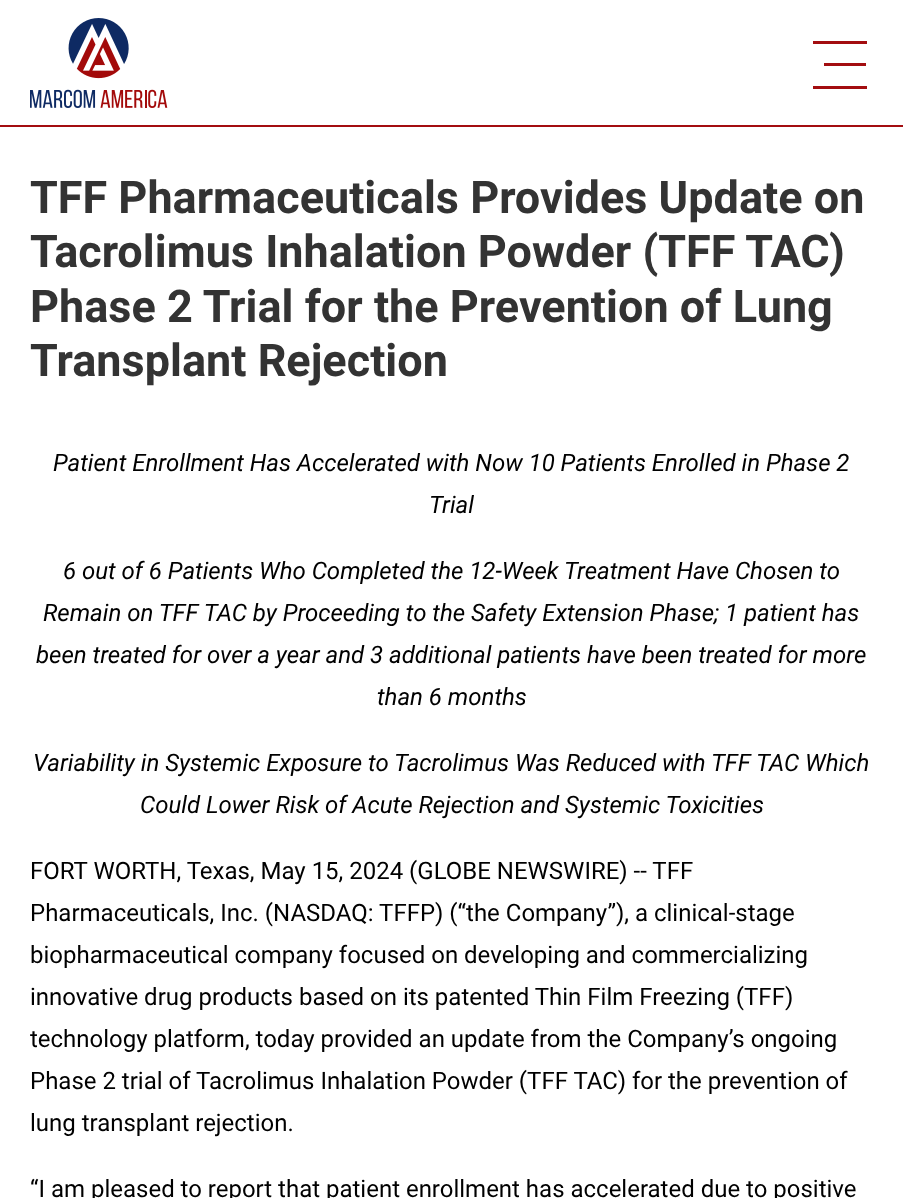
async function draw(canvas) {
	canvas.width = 903;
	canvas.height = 1198;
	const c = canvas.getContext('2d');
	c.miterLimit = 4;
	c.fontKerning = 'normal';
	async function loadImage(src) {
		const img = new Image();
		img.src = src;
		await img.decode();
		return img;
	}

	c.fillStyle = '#fff';
	c.fillRect(0, 0, 903, 1198);
	c.drawImage(await loadImage('img1.png'), 30, 18, 138, 90);
	for (const [x, y, w, h, color] of [
		[813, 41, 54, 3, '#a30d10'],
		[824, 63, 42, 3, '#a30d10'],
		[813, 86, 54, 3, '#a30d10'],
		[0, 125, 903, 2, '#a30d10'],
	]) {
		c.fillStyle = color;
		c.fillRect(x, y, w, h);
	}
	c.font = 'bold 45px Roboto';
	c.fillStyle = '#333';
	for (const [text, x, y] of [
		['TFF Pharmaceuticals Provides Update on', 30, 213],
		['Tacrolimus Inhalation Powder (TFF TAC)', 30, 267],
		['Phase 2 Trial for the Prevention of Lung', 30, 322],
		['Transplant Rejection', 30, 376],
	]) {
		c.fillText(text, x, y);
	}
	c.font = 'italic 24px Roboto';
	c.fillStyle = '#000';
	for (const [text, x, y] of [
		['Patient Enrollment Has Accelerated with Now 10 Patients Enrolled in Phase 2', 53, 471],
		['Trial', 429, 513],
		['6 out of 6 Patients Who Completed the 12-Week Treatment Have Chosen to', 63, 579],
		['Remain on TFF TAC by Proceeding to the Safety Extension Phase; 1 patient has', 43, 621],
		['been treated for over a year and 3 additional patients have been treated for more', 36, 663],
		['than 6 months', 377, 705],
		['Variability in Systemic Exposure to Tacrolimus Was Reduced with TFF TAC Which', 33, 771],
		['Could Lower Risk of Acute Rejection and Systemic Toxicities', 140, 813],
	]) {
		c.fillText(text, x, y);
	}
	c.font = '24px Roboto';
	for (const [text, x, y] of [
		['FORT WORTH, Texas, May 15, 2024 (GLOBE NEWSWIRE) -- TFF', 30, 879],
		['Pharmaceuticals, Inc. (NASDAQ: TFFP) (“the Company”), a clinical-stage', 30, 921],
		['biopharmaceutical company focused on developing and commercializing', 30, 963],
		['innovative drug products based on its patented Thin Film Freezing (TFF)', 30, 1005],
		['technology platform, today provided an update from the Company’s ongoing', 30, 1047],
		['Phase 2 trial of Tacrolimus Inhalation Powder (TFF TAC) for the prevention of', 30, 1089],
		['lung transplant rejection.', 30, 1131],
		['“I am pleased to report that patient enrollment has accelerated due to positive', 30, 1197],
	]) {
		c.fillText(text, x, y);
	}
}

draw(document.querySelector('canvas'));
